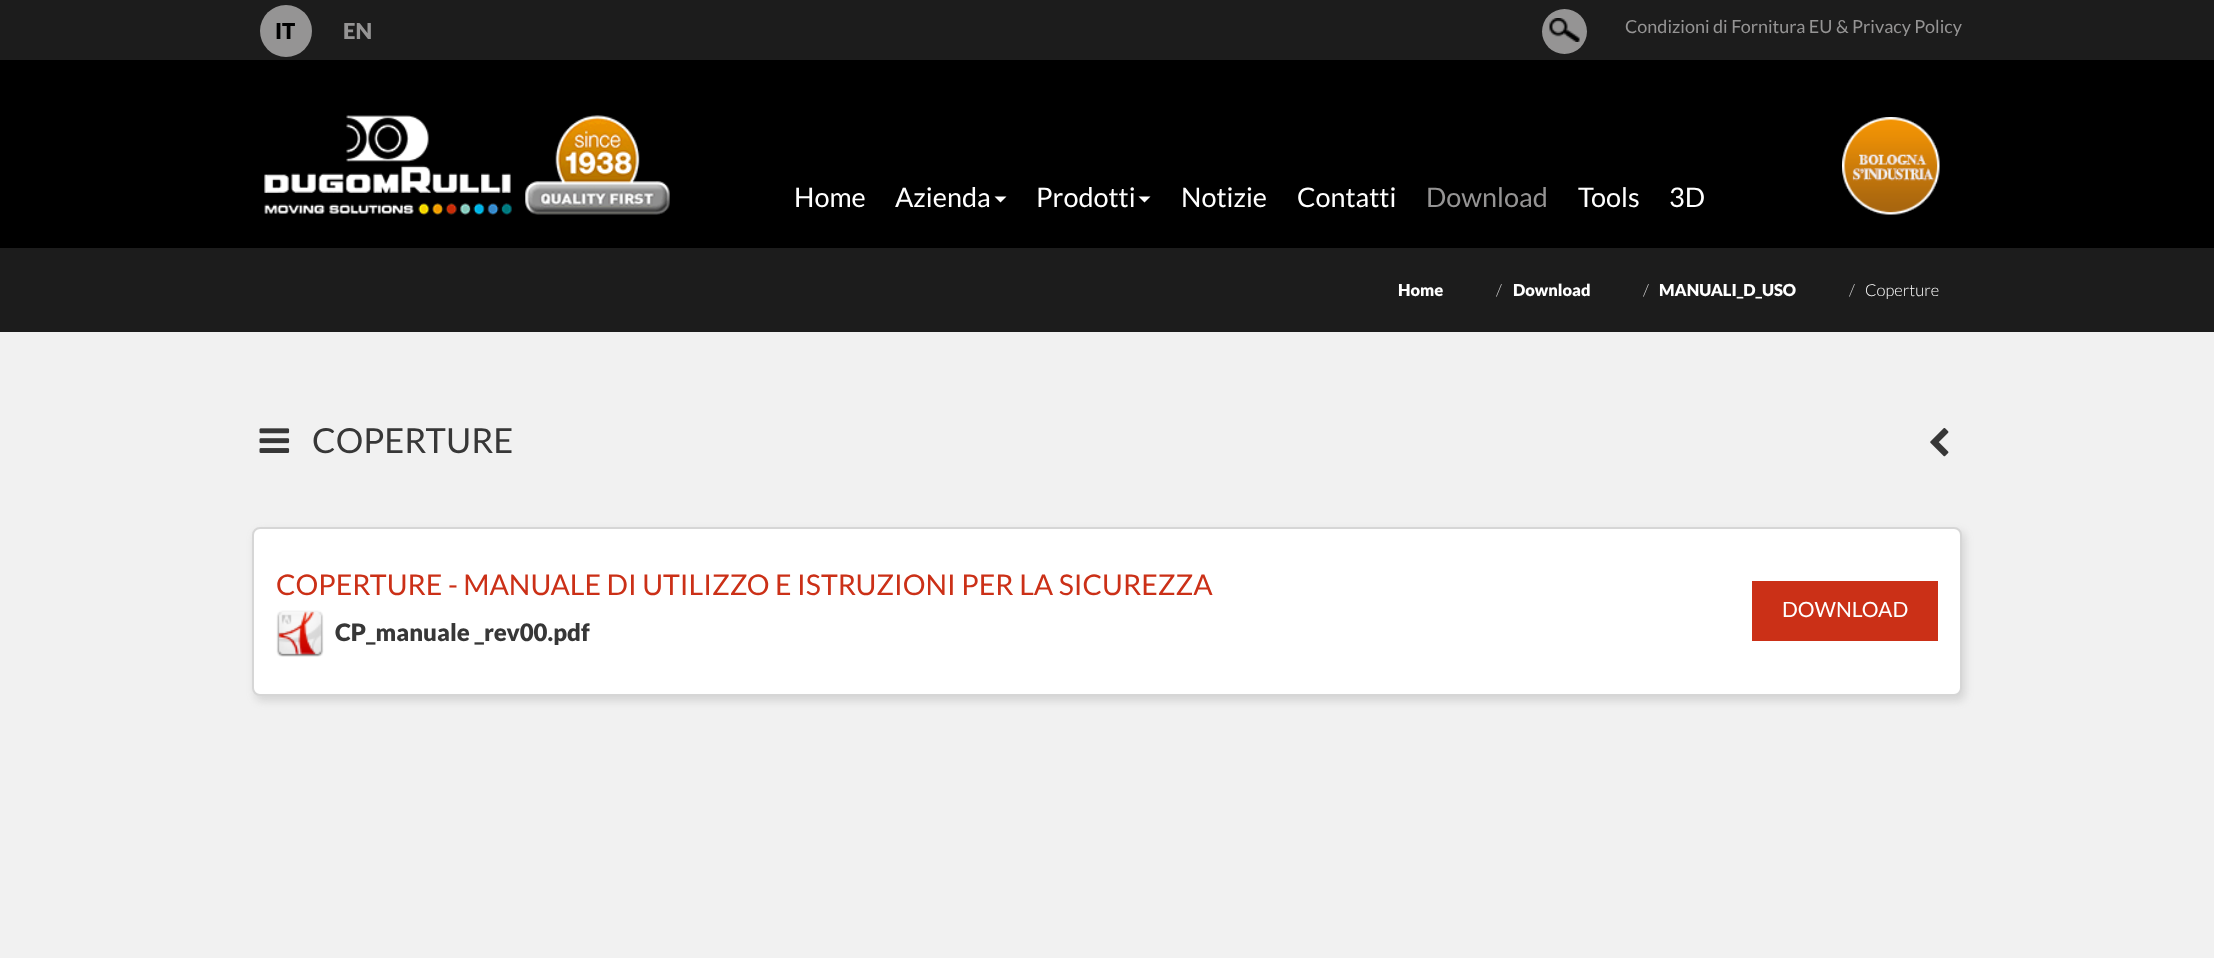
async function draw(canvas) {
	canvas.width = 2214;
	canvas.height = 958;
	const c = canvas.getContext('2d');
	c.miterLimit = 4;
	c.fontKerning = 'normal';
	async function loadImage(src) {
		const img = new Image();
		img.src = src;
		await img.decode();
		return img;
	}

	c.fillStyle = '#1c1c1c';
	c.fillRect(0, 0, 2214, 958);
	c.fillStyle = '#959494';
	c.beginPath();
	c.arc(286, 31, 26, 0, 2 * Math.PI);
	c.fill();
	c.font = '900 22px Lato';
	c.fillStyle = '#000';
	c.fillText('IT', 275, 39);
	c.fillStyle = '#959494';
	c.fillText('EN', 343, 39);
	c.beginPath();
	c.arc(1564.5, 31.5, 22.5, 0, 2 * Math.PI);
	c.fill();
	c.drawImage(await loadImage('img1.png'), 1549, 18, 31, 24);
	c.font = '18px Lato';
	c.fillText('Condizioni di Fornitura EU & Privacy Policy', 1625, 33);
	c.fillStyle = '#000';
	c.fillRect(0, 60, 2214, 188);
	c.drawImage(await loadImage('img2.png'), 264, 115, 406, 100);
	c.font = '27px Lato';
	c.fillStyle = '#fff';
	c.fillText('Home', 794, 207);
	c.fillText('Azienda', 895, 207);
	c.beginPath();
	c.moveTo(994.5, 196.5);
	c.lineTo(1006.5, 196.5);
	c.lineTo(1000.5, 202.5);
	c.closePath();
	c.fill();
	c.fillText('Prodotti', 1036, 207);
	c.beginPath();
	c.moveTo(1138.5, 196.5);
	c.lineTo(1150.5, 196.5);
	c.lineTo(1144.5, 202.5);
	c.closePath();
	c.fill();
	c.fillText('Notizie', 1181, 207);
	c.fillText('Contatti', 1297, 207);
	c.fillStyle = '#959494';
	c.fillText('Download', 1426, 207);
	c.fillStyle = '#fff';
	c.fillText('Tools', 1578, 207);
	c.fillText('3D', 1669, 207);
	c.drawImage(await loadImage('img3.png'), 1842, 117, 98, 98);
	c.font = '900 16.5px Lato';
	c.fillText('Home', 1398, 296);
	c.font = '300 16.5px Lato';
	c.fillStyle = '#ccc';
	c.fillText('/', 1496, 296);
	c.font = '900 16.5px Lato';
	c.fillStyle = '#fff';
	c.fillText('Download', 1513, 296);
	c.font = '300 16.5px Lato';
	c.fillStyle = '#ccc';
	c.fillText('/', 1643, 296);
	c.font = '900 16.5px Lato';
	c.fillStyle = '#fff';
	c.fillText('MANUALI_D_USO', 1659, 296);
	c.font = '300 16.5px Lato';
	c.fillStyle = '#ccc';
	c.fillText('/', 1849, 296);
	c.fillStyle = '#fff';
	c.fillText('Coperture', 1865, 296);
	c.fillStyle = '#f1f1f1';
	c.fillRect(0, 332, 2214, 626);
	c.drawImage(await loadImage('img4.png'), 259, 428, 31, 25);
	c.font = '34.5px Lato';
	c.fillStyle = '#373737';
	c.fillText('COPERTURE', 312, 453);
	c.drawImage(await loadImage('img5.png'), 1930, 428, 19, 29);
	c.fillStyle = '#64646433';
	c.filter = 'blur(4px)';
	c.beginPath();
	c.roundRect(255, 531, 1710, 170, 8);
	c.fill();
	c.filter = 'none';
	c.fillStyle = '#fff';
	c.beginPath();
	c.roundRect(253, 528, 1708, 167, 7);
	c.fill();
	c.strokeStyle = '#d6d6d6';
	c.lineWidth = 2;
	c.stroke();
	c.font = '28.5px Lato';
	c.fillStyle = '#cb3017';
	c.fillText('COPERTURE - MANUALE DI UTILIZZO E ISTRUZIONI PER LA SICUREZZA', 276, 595);
	c.drawImage(await loadImage('img6.png'), 276, 610, 48, 47);
	c.font = '900 24px Lato';
	c.fillStyle = '#373737';
	c.fillText('CP_manuale _rev00.pdf', 335, 641);
	c.fillStyle = '#cb3017';
	c.fillRect(1752, 581, 186, 60);
	c.font = '21px Lato';
	c.fillStyle = '#fff';
	c.fillText('DOWNLOAD', 1782, 617);
}

draw(document.querySelector('canvas'));
